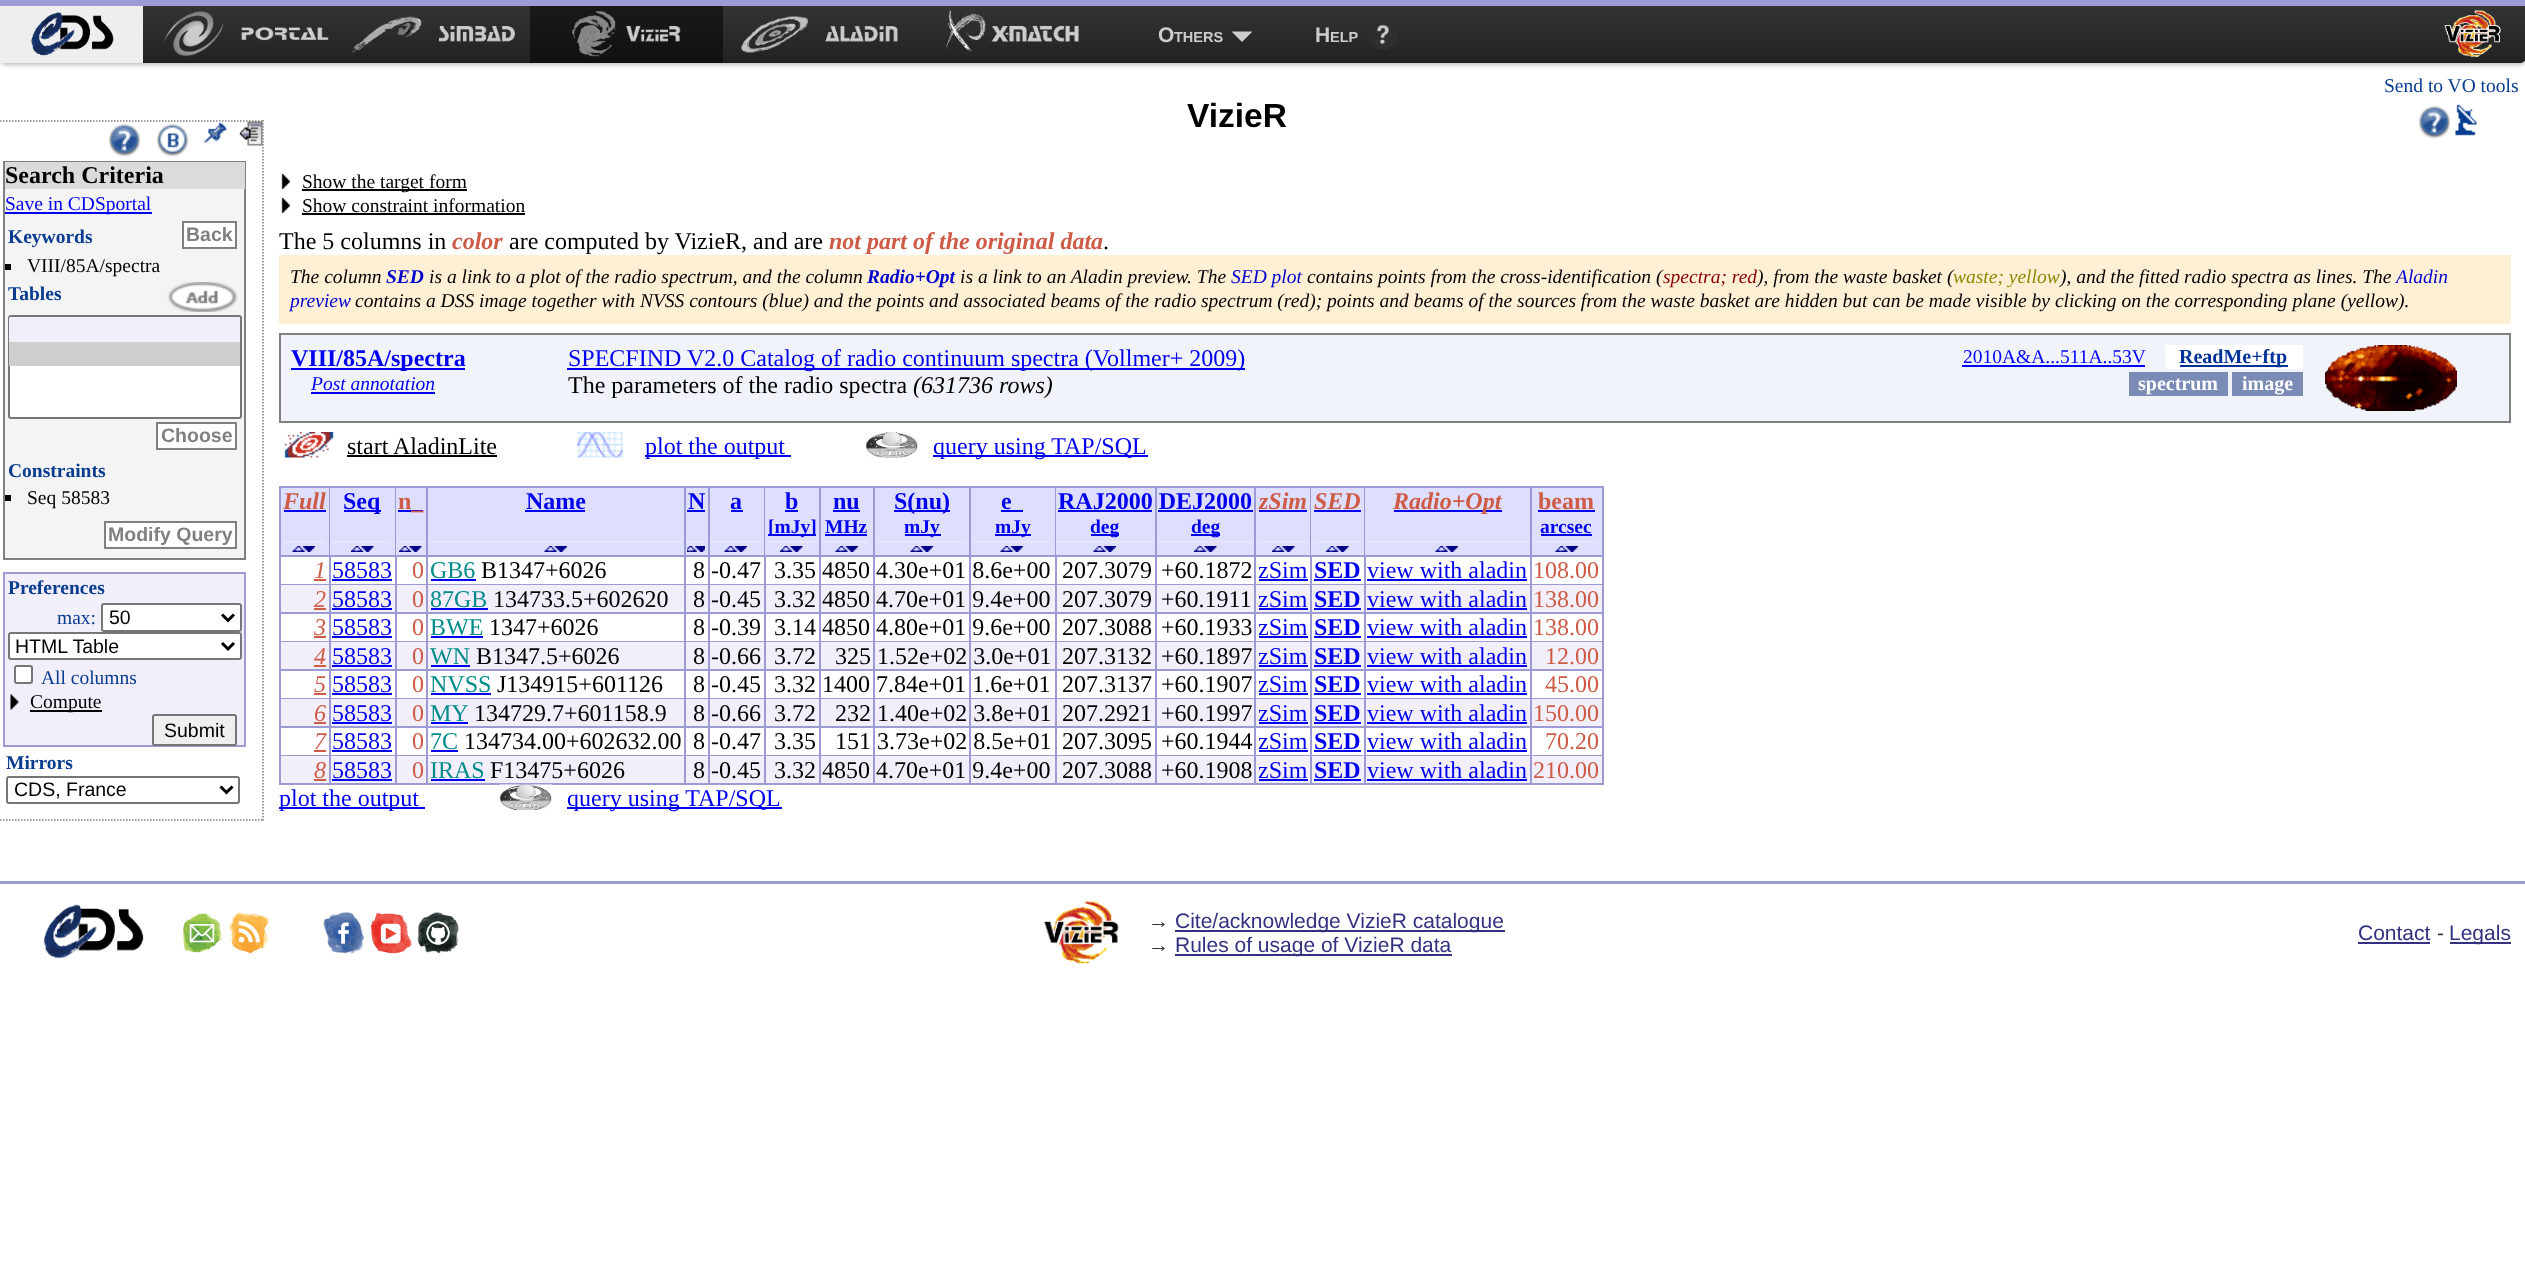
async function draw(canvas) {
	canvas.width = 2525;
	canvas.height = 1285;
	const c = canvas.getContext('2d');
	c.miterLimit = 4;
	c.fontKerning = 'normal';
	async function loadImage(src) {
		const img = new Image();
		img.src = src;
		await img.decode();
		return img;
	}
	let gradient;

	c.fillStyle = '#fff';
	c.fillRect(0, 0, 2525, 1285);
	c.fillStyle = '#00000040';
	c.filter = 'blur(2px)';
	c.beginPath();
	c.roundRect(0, 2, 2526, 63, 6);
	c.fill();
	c.filter = 'none';
	gradient = c.createLinearGradient(1263, 6, 1263, 63);
	gradient.addColorStop(0, '#333');
	gradient.addColorStop(1, '#222');
	c.fillStyle = gradient;
	c.beginPath();
	c.moveTo(0, 6);
	c.lineTo(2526, 6);
	c.lineTo(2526, 57);
	c.bezierCurveTo(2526, 60.5, 2523.5, 63, 2520, 63);
	c.lineTo(6, 63);
	c.bezierCurveTo(2.5, 63, 0, 60.5, 0, 57);
	c.closePath();
	c.fill();
	c.fillStyle = '#0000001a';
	c.beginPath();
	c.moveTo(0, 55);
	c.lineTo(0, 57);
	c.bezierCurveTo(0, 60, 3, 63, 6, 63);
	c.lineTo(2520, 63);
	c.bezierCurveTo(2523, 63, 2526, 60, 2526, 57);
	c.lineTo(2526, 55);
	c.bezierCurveTo(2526, 59, 2523, 62, 2520, 62);
	c.lineTo(6, 62);
	c.bezierCurveTo(3, 62, 0, 59, 0, 55);
	c.closePath();
	c.fill();
	c.fillStyle = '#9c9bd5';
	c.fillRect(0, 0, 2525, 6);
	c.fillStyle = '#eee';
	c.fillRect(0, 6, 143, 57);
	c.drawImage(await loadImage('img1.png'), 31, 12, 83, 44);
	c.drawImage(await loadImage('img2.png'), 163, 11, 61, 46);
	c.drawImage(await loadImage('img3.png'), 241, 26, 88, 15);
	c.drawImage(await loadImage('img4.png'), 351, 16, 71, 37);
	c.drawImage(await loadImage('img5.png'), 438, 26, 77, 16);
	c.fillStyle = '#00000080';
	c.fillRect(530, 6, 193, 57);
	c.drawImage(await loadImage('img6.png'), 572, 10, 44, 47);
	c.drawImage(await loadImage('img7.png'), 626, 25, 55, 17);
	c.drawImage(await loadImage('img8.png'), 740, 16, 69, 37);
	c.drawImage(await loadImage('img9.png'), 825, 26, 73, 16);
	c.drawImage(await loadImage('img10.png'), 946, 10, 40, 42);
	c.drawImage(await loadImage('img11.png'), 991, 25, 88, 17);
	c.font = 'bold 21px Liberation Sans';
	c.fillStyle = '#ccc';
	c.fillText('O', 1158, 42);
	c.font = 'bold 14.5px Liberation Sans';
	c.fillText('THERS', 1174, 42);
	c.beginPath();
	c.moveTo(1231.5, 31.5);
	c.lineTo(1252.5, 31.5);
	c.lineTo(1242, 42);
	c.closePath();
	c.fill();
	c.font = 'bold 21px Liberation Sans';
	c.fillText('H', 1315, 42);
	c.font = 'bold 14.5px Liberation Sans';
	c.fillText('ELP', 1330, 42);
	c.drawImage(await loadImage('img12.png'), 1368, 24, 30, 26);
	c.drawImage(await loadImage('img13.png'), 2444, 9, 57, 48);
	c.beginPath();
	c.moveTo(0, 121);
	c.lineTo(264, 121);
	c.strokeStyle = '#808080';
	c.lineWidth = 1.5;
	c.setLineDash([1.5, 1.5]);
	c.stroke();
	c.beginPath();
	c.moveTo(263, 120);
	c.lineTo(263, 820.5);
	c.stroke();
	c.beginPath();
	c.moveTo(0, 820);
	c.lineTo(264, 820);
	c.stroke();
	c.drawImage(await loadImage('img14.png'), 109, 124, 32, 33);
	c.drawImage(await loadImage('img15.png'), 157, 124, 32, 33);
	c.drawImage(await loadImage('img16.png'), 203, 122, 24, 21);
	c.drawImage(await loadImage('img17.png'), 239, 121, 24, 25);
	c.fillStyle = '#f4f4f4';
	c.fillRect(5, 189, 239, 369);
	c.lineWidth = 2;
	c.setLineDash([]);
	c.strokeRect(4, 162, 241, 397);
	c.fillStyle = '#dbdbdb';
	c.fillRect(5, 162, 240, 27);
	c.font = 'bold 24px Liberation Serif';
	c.fillStyle = '#000';
	c.fillText('Search Criteria', 5, 183);
	c.fillStyle = '#00e';
	c.fillRect(5, 212, 147, 2);
	c.font = '19.5px Liberation Serif';
	c.fillText('Save in CDSportal', 5, 210);
	c.font = 'bold 19.5px Liberation Serif';
	c.fillStyle = '#083c91';
	c.fillText('Keywords', 8, 243);
	c.fillStyle = '#fff';
	c.beginPath();
	c.rect(183, 222, 53, 26);
	c.fill();
	c.stroke();
	c.font = 'bold 19.5px Liberation Sans';
	c.fillStyle = '#808080';
	c.fillText('Back', 186, 241);
	c.fillStyle = '#000';
	c.fillRect(5, 264, 6, 6);
	c.font = '19.5px Liberation Serif';
	c.fillText('VIII/85A/spectra', 27, 272);
	c.font = 'bold 19.5px Liberation Serif';
	c.fillStyle = '#083c91';
	c.fillText('Tables', 8, 300);
	c.drawImage(await loadImage('img18.png'), 167, 282, 71, 30);
	c.fillStyle = '#fff';
	c.beginPath();
	c.roundRect(9, 316, 232, 102, 2);
	c.fill();
	c.strokeStyle = '#767676';
	c.stroke();
	c.fillStyle = '#f2effb';
	c.beginPath();
	c.roundRect(9, 317, 231, 25, [1.5, 1.5, 0, 0]);
	c.fill();
	c.fillStyle = '#cecece';
	c.fillRect(9, 342, 231, 24);
	c.fillStyle = '#fff';
	c.beginPath();
	c.rect(157, 423, 79, 26);
	c.fill();
	c.strokeStyle = '#808080';
	c.stroke();
	c.font = 'bold 19.5px Liberation Sans';
	c.fillStyle = '#808080';
	c.fillText('Choose', 161, 442);
	c.font = 'bold 19.5px Liberation Serif';
	c.fillStyle = '#083c91';
	c.fillText('Constraints', 8, 477);
	c.fillStyle = '#000';
	c.fillRect(5, 495, 6, 6);
	c.font = '19.5px Liberation Serif';
	c.fillText('Seq 58583', 27, 504);
	c.fillStyle = '#fff';
	c.beginPath();
	c.rect(105, 522, 131, 26);
	c.fill();
	c.stroke();
	c.font = 'bold 19.5px Liberation Sans';
	c.fillStyle = '#808080';
	c.fillText('Modify Query', 108, 541);
	c.fillStyle = '#f2effb';
	c.beginPath();
	c.rect(4, 573, 241, 173);
	c.fill();
	c.strokeStyle = '#9c9bd5';
	c.stroke();
	c.font = 'bold 19.5px Liberation Serif';
	c.fillStyle = '#083c91';
	c.fillText('Preferences', 8, 594);
	c.font = '19.5px Liberation Serif';
	c.fillText('max:', 57, 624);
	c.fillStyle = '#fff';
	c.beginPath();
	c.roundRect(102, 604, 139, 27, 2);
	c.fill();
	c.strokeStyle = '#767676';
	c.stroke();
	c.beginPath();
	c.moveTo(222, 614.5);
	c.lineTo(228, 620.5);
	c.lineTo(234, 614.5);
	c.strokeStyle = '#000';
	c.lineWidth = 3;
	c.stroke();
	c.font = '19.5px Liberation Sans';
	c.fillStyle = '#000';
	c.fillText('50', 109, 624);
	c.fillStyle = '#fff';
	c.beginPath();
	c.roundRect(9, 633, 232, 26, 2);
	c.fill();
	c.strokeStyle = '#767676';
	c.lineWidth = 2;
	c.stroke();
	c.beginPath();
	c.moveTo(222, 643);
	c.lineTo(228, 649);
	c.lineTo(234, 643);
	c.strokeStyle = '#000';
	c.lineWidth = 3;
	c.stroke();
	c.fillStyle = '#000';
	c.fillText('HTML Table', 15, 653);
	c.fillStyle = '#fff';
	c.beginPath();
	c.roundRect(15, 666, 17, 17, 2);
	c.fill();
	c.strokeStyle = '#767676';
	c.lineWidth = 2;
	c.stroke();
	c.font = '19.5px Liberation Serif';
	c.fillStyle = '#083c91';
	c.fillText('All columns', 41, 684);
	c.drawImage(await loadImage('img19.png'), 10, 694, 9, 16);
	c.fillStyle = '#000';
	c.fillRect(30, 710, 72, 2);
	c.fillText('Compute', 30, 708);
	c.fillStyle = '#efefef';
	c.beginPath();
	c.roundRect(153, 715, 83, 30, 2);
	c.fill();
	c.stroke();
	c.font = '19.5px Liberation Sans';
	c.fillStyle = '#000';
	c.fillText('Submit', 164, 737);
	c.font = 'bold 19.5px Liberation Serif';
	c.fillStyle = '#083c91';
	c.fillText('Mirrors', 6, 769);
	c.beginPath();
	c.roundRect(7, 777, 232, 26, 2);
	c.stroke();
	c.beginPath();
	c.moveTo(220.5, 786.5);
	c.lineTo(226.5, 792.5);
	c.lineTo(232.5, 786.5);
	c.strokeStyle = '#000';
	c.lineWidth = 3;
	c.stroke();
	c.font = '19.5px Liberation Sans';
	c.fillStyle = '#000';
	c.fillText('CDS, France', 14, 796);
	c.font = '19.5px Liberation Serif';
	c.fillStyle = '#083c91';
	c.fillText('Send to VO tools', 2384, 92);
	c.drawImage(await loadImage('img14.png'), 2419, 106, 32, 33);
	c.drawImage(await loadImage('img20.png'), 2455, 104, 22, 32);
	c.drawImage(await loadImage('img21.png'), 281, 174, 9, 15);
	c.fillStyle = '#000';
	c.fillRect(302, 189, 165, 2);
	c.fillText('Show the target form', 302, 188);
	c.drawImage(await loadImage('img21.png'), 281, 198, 9, 15);
	c.fillText('Show constraint information', 302, 212);
	c.fillRect(302, 213, 223, 2);
	c.font = '24px Liberation Serif';
	c.fillText('The 5 columns in', 279, 249);
	c.font = 'italic bold 24px Liberation Serif';
	c.fillStyle = '#cd5b45';
	c.fillText('color', 452, 249);
	c.font = '24px Liberation Serif';
	c.fillStyle = '#000';
	c.fillText('are computed by VizieR, and are', 509, 249);
	c.font = 'italic bold 24px Liberation Serif';
	c.fillStyle = '#cd5b45';
	c.fillText('not part of the original data', 829, 249);
	c.font = '24px Liberation Serif';
	c.fillStyle = '#000';
	c.fillText('.', 1103, 249);
	c.fillStyle = '#ffefd5';
	c.fillRect(279, 255, 2232, 69);
	c.font = 'italic 19.5px Liberation Serif';
	c.fillStyle = '#000';
	c.fillText('The column', 290, 283);
	c.font = 'italic bold 19.5px Liberation Serif';
	c.fillStyle = '#0000cd';
	c.fillText('SED', 386, 283);
	c.font = 'italic 19.5px Liberation Serif';
	c.fillStyle = '#000';
	c.fillText('is a link to a plot of the radio spectrum, and the column', 429, 283);
	c.font = 'italic bold 19.5px Liberation Serif';
	c.fillStyle = '#0000cd';
	c.fillText('Radio+Opt', 867, 283);
	c.font = 'italic 19.5px Liberation Serif';
	c.fillStyle = '#000';
	c.fillText('is a link to an Aladin preview. The', 960, 283);
	c.fillStyle = '#0000cd';
	c.fillText('SED plot', 1231, 283);
	c.fillStyle = '#000';
	c.fillText('contains points from the cross-identification (', 1307, 283);
	c.fillStyle = '#8b0000';
	c.fillText('spectra; red', 1663, 283);
	c.fillStyle = '#000';
	c.fillText('), from the waste basket (', 1757, 283);
	c.fillStyle = '#8b8b00';
	c.fillText('waste; yellow', 1953, 283);
	c.fillStyle = '#000';
	c.fillText('), and the fitted radio spectra as lines. The', 2060, 283);
	c.fillStyle = '#0000cd';
	c.fillText('Aladin', 2396, 283);
	c.fillText('preview', 290, 307);
	c.fillStyle = '#000';
	c.fillText('contains a DSS image together with NVSS contours (blue) and the points and associated beams of the radio spectrum (red); points and beams of the sources from the waste basket are hidden but can be made visible by clicking on the corresponding plane (yellow).', 355, 307);
	c.fillStyle = '#f1f3fb';
	c.beginPath();
	c.rect(280, 334, 2230, 88);
	c.fill();
	c.strokeStyle = '#808080';
	c.lineWidth = 2;
	c.stroke();
	c.fillStyle = '#00e';
	c.fillRect(291, 368, 174, 2);
	c.font = 'bold 24px Liberation Serif';
	c.fillText('VIII/85A/spectra', 291, 366);
	c.font = 'italic 19.5px Liberation Serif';
	c.fillText('Post annotation', 311, 390);
	c.fillRect(311, 392, 124, 2);
	c.fillRect(567, 368, 678, 2);
	c.font = '24px Liberation Serif';
	c.fillText('SPECFIND V2.0 Catalog of radio continuum spectra (Vollmer+ 2009)', 568, 366);
	c.font = '19.5px Liberation Serif';
	c.fillStyle = '#00f';
	c.fillText('2010A&A...511A..53V', 1963, 363);
	for (const [x, y, w, h, color] of [
		[1962, 365, 183, 2, '#00f'],
		[2165, 345, 138, 24, '#fff'],
		[2180, 365, 108, 2, '#039'],
	]) {
		c.fillStyle = color;
		c.fillRect(x, y, w, h);
	}
	c.font = 'bold 20px Liberation Serif';
	c.fillText('ReadMe+ftp', 2179, 363);
	c.font = '24px Liberation Serif';
	c.fillStyle = '#000';
	c.fillText('The parameters of the radio spectra', 568, 393);
	c.font = 'italic 24px Liberation Serif';
	c.fillText('(631736 rows)', 913, 393);
	c.fillStyle = '#7a8bb6';
	c.fillRect(2129, 372, 99, 24);
	c.font = 'bold 20px Liberation Serif';
	c.fillStyle = '#fff';
	c.fillText('spectrum', 2138, 390);
	c.fillStyle = '#7a8bb6';
	c.fillRect(2232, 372, 71, 24);
	c.fillStyle = '#fff';
	c.fillText('image', 2242, 390);
	c.drawImage(await loadImage('img22.png'), 2325, 345, 132, 66);
	c.drawImage(await loadImage('img23.png'), 284, 432, 50, 26);
	c.font = '24px Liberation Serif';
	c.fillStyle = '#000';
	c.fillText('start AladinLite', 347, 454);
	c.fillRect(347, 455, 150, 2);
	c.drawImage(await loadImage('img24.png'), 577, 432, 46, 26);
	c.fillStyle = '#00e';
	c.fillRect(645, 455, 146, 2);
	c.fillText('plot the output', 645, 454);
	c.drawImage(await loadImage('img25.png'), 865, 432, 53, 26);
	c.fillRect(933, 455, 215, 2);
	c.fillText('query using TAP/SQL', 933, 454);
	for (const [x, y, w, h, color] of [
		[279, 486, 1325, 2, '#9c9bd5'],
		[279, 486, 2, 299, '#9c9bd5'],
		[281, 488, 48, 67, '#dedeff'],
		[329, 488, 1, 69, '#9c9bd5'],
		[281, 555, 49, 2, '#9c9bd5'],
	]) {
		c.fillStyle = color;
		c.fillRect(x, y, w, h);
	}
	c.font = 'italic bold 24px Liberation Serif';
	c.fillStyle = '#cd5b45';
	c.fillText('Full', 283, 509);
	c.fillStyle = '#00e';
	c.fillRect(284, 510, 42, 2);
	c.drawImage(await loadImage('img26.png'), 292, 546, 23, 6);
	c.beginPath();
	c.moveTo(283.5, 542);
	c.lineTo(325.5, 542);
	c.strokeStyle = '#f2effb';
	c.lineWidth = 1.5;
	c.setLineDash([1.5, 1.5]);
	c.stroke();
	for (const [x, y, w, h, color] of [
		[330, 488, 65, 67, '#dedeff'],
		[395, 488, 1, 69, '#9c9bd5'],
		[330, 555, 66, 2, '#9c9bd5'],
		[344, 510, 37, 2, '#00e'],
	]) {
		c.fillStyle = color;
		c.fillRect(x, y, w, h);
	}
	c.font = 'bold 24px Liberation Serif';
	c.fillText('Seq', 343, 509);
	c.drawImage(await loadImage('img27.png'), 351, 546, 23, 6);
	c.beginPath();
	c.moveTo(331.5, 542);
	c.lineTo(391.5, 542);
	c.stroke();
	for (const [x, y, w, h, color] of [
		[396, 488, 30, 67, '#dedeff'],
		[426, 488, 2, 97, '#9c9bd5'],
		[396, 555, 32, 2, '#9c9bd5'],
		[398, 510, 25, 2, '#00e'],
	]) {
		c.fillStyle = color;
		c.fillRect(x, y, w, h);
	}
	c.fillStyle = '#cd5b45';
	c.fillText('n_', 398, 509);
	c.drawImage(await loadImage('img27.png'), 399, 546, 23, 6);
	c.beginPath();
	c.moveTo(397.5, 542);
	c.lineTo(423, 542);
	c.stroke();
	for (const [x, y, w, h, color] of [
		[428, 488, 256, 67, '#dedeff'],
		[684, 488, 2, 97, '#9c9bd5'],
		[428, 555, 258, 2, '#9c9bd5'],
	]) {
		c.fillStyle = color;
		c.fillRect(x, y, w, h);
	}
	c.fillStyle = '#00e';
	c.fillText('Name', 526, 509);
	c.fillRect(525, 510, 60, 2);
	c.drawImage(await loadImage('img26.png'), 544, 546, 23, 6);
	c.beginPath();
	c.moveTo(430.5, 542);
	c.lineTo(681, 542);
	c.stroke();
	for (const [x, y, w, h, color] of [
		[686, 488, 22, 67, '#dedeff'],
		[708, 488, 2, 97, '#9c9bd5'],
		[686, 555, 24, 2, '#9c9bd5'],
	]) {
		c.fillStyle = color;
		c.fillRect(x, y, w, h);
	}
	c.fillStyle = '#00e';
	c.fillText('N', 688, 509);
	c.fillRect(687, 510, 18, 2);
	c.drawImage(await loadImage('img28.png'), 687, 546, 18, 6);
	c.beginPath();
	c.moveTo(687, 542);
	c.lineTo(705, 542);
	c.stroke();
	for (const [x, y, w, h, color] of [
		[710, 488, 54, 67, '#dedeff'],
		[764, 488, 1, 69, '#9c9bd5'],
		[710, 555, 55, 2, '#9c9bd5'],
	]) {
		c.fillStyle = color;
		c.fillRect(x, y, w, h);
	}
	c.fillStyle = '#00e';
	c.fillText('a', 730, 509);
	c.fillRect(731, 510, 12, 2);
	c.drawImage(await loadImage('img26.png'), 724, 546, 23, 6);
	c.beginPath();
	c.moveTo(711, 542);
	c.lineTo(762, 542);
	c.stroke();
	for (const [x, y, w, h, color] of [
		[765, 488, 54, 67, '#dedeff'],
		[819, 488, 2, 97, '#9c9bd5'],
		[765, 555, 56, 2, '#9c9bd5'],
	]) {
		c.fillStyle = color;
		c.fillRect(x, y, w, h);
	}
	c.fillStyle = '#00e';
	c.fillText('b', 785, 509);
	c.fillRect(785, 510, 13, 2);
	c.fillRect(768, 534, 48, 2);
	c.font = 'bold 19.5px Liberation Serif';
	c.fillText('[mJy]', 768, 533);
	c.drawImage(await loadImage('img29.png'), 780, 546, 23, 6);
	c.beginPath();
	c.moveTo(768, 542);
	c.lineTo(816, 542);
	c.stroke();
	for (const [x, y, w, h, color] of [
		[821, 488, 52, 67, '#dedeff'],
		[873, 488, 2, 97, '#9c9bd5'],
		[821, 555, 54, 2, '#9c9bd5'],
	]) {
		c.fillStyle = color;
		c.fillRect(x, y, w, h);
	}
	c.font = 'bold 24px Liberation Serif';
	c.fillStyle = '#00e';
	c.fillText('nu', 833, 509);
	c.fillRect(833, 510, 27, 2);
	c.font = 'bold 19.5px Liberation Serif';
	c.fillText('MHz', 825, 533);
	c.fillRect(825, 534, 42, 2);
	c.drawImage(await loadImage('img30.png'), 835, 546, 23, 6);
	c.beginPath();
	c.moveTo(822, 542);
	c.lineTo(870, 542);
	c.stroke();
	for (const [x, y, w, h, color] of [
		[875, 488, 94, 67, '#dedeff'],
		[969, 488, 2, 97, '#9c9bd5'],
		[875, 555, 96, 2, '#9c9bd5'],
		[894, 510, 56, 2, '#00e'],
	]) {
		c.fillStyle = color;
		c.fillRect(x, y, w, h);
	}
	c.font = 'bold 24px Liberation Serif';
	c.fillText('S(nu)', 894, 509);
	c.fillRect(905, 534, 36, 2);
	c.font = 'bold 19.5px Liberation Serif';
	c.fillText('mJy', 904, 533);
	c.drawImage(await loadImage('img30.png'), 910, 546, 23, 6);
	c.beginPath();
	c.moveTo(877.5, 542);
	c.lineTo(967.5, 542);
	c.stroke();
	for (const [x, y, w, h, color] of [
		[971, 488, 84, 67, '#dedeff'],
		[1055, 488, 1, 69, '#9c9bd5'],
		[971, 555, 85, 2, '#9c9bd5'],
	]) {
		c.fillStyle = color;
		c.fillRect(x, y, w, h);
	}
	c.font = 'bold 24px Liberation Serif';
	c.fillStyle = '#00e';
	c.fillText('e', 1001, 509);
	c.fillRect(1001, 510, 22, 2);
	c.fillRect(995, 534, 36, 2);
	c.font = 'bold 19.5px Liberation Serif';
	c.fillText('mJy', 995, 533);
	c.drawImage(await loadImage('img30.png'), 1000, 546, 23, 6);
	c.beginPath();
	c.moveTo(973.5, 542);
	c.lineTo(1051.5, 542);
	c.stroke();
	for (const [x, y, w, h, color] of [
		[1056, 488, 99, 67, '#dedeff'],
		[1155, 488, 2, 97, '#9c9bd5'],
		[1056, 555, 101, 2, '#9c9bd5'],
		[1157, 488, 97, 67, '#dedeff'],
	]) {
		c.fillStyle = color;
		c.fillRect(x, y, w, h);
	}
	c.font = 'bold 24px Liberation Serif';
	c.fillStyle = '#00e';
	c.fillText('RAJ2000 DEJ2000', 1058, 509);
	c.fillRect(1058, 510, 94, 2);
	c.fillRect(1091, 534, 28, 2);
	c.font = 'bold 19.5px Liberation Serif';
	c.fillText('deg', 1090, 533);
	c.drawImage(await loadImage('img30.png'), 1093, 546, 23, 6);
	c.beginPath();
	c.moveTo(1057.5, 542);
	c.lineTo(1152, 542);
	c.stroke();
	for (const [x, y, w, h, color] of [
		[1256, 488, 54, 67, '#dedeff'],
		[1310, 488, 1, 69, '#9c9bd5'],
		[1256, 555, 55, 2, '#9c9bd5'],
	]) {
		c.fillStyle = color;
		c.fillRect(x, y, w, h);
	}
	c.font = 'italic bold 24px Liberation Serif';
	c.fillStyle = '#cd5b45';
	c.fillText('zSim', 1259, 509);
	c.fillStyle = '#00e';
	c.fillRect(1259, 510, 48, 2);
	c.drawImage(await loadImage('img29.png'), 1272, 546, 23, 6);
	c.beginPath();
	c.moveTo(1258.5, 542);
	c.lineTo(1308, 542);
	c.stroke();
	for (const [x, y, w, h, color] of [
		[1311, 488, 53, 67, '#dedeff'],
		[1364, 488, 1, 69, '#9c9bd5'],
		[1311, 555, 54, 2, '#9c9bd5'],
	]) {
		c.fillStyle = color;
		c.fillRect(x, y, w, h);
	}
	c.fillStyle = '#cd5b45';
	c.fillText('SED', 1314, 509);
	c.fillStyle = '#00e';
	c.fillRect(1314, 510, 47, 2);
	c.drawImage(await loadImage('img27.png'), 1326, 546, 23, 6);
	c.beginPath();
	c.moveTo(1314, 542);
	c.lineTo(1360.5, 542);
	c.stroke();
	for (const [x, y, w, h, color] of [
		[1365, 488, 165, 67, '#dedeff'],
		[1530, 488, 2, 97, '#9c9bd5'],
		[1365, 555, 167, 2, '#9c9bd5'],
		[1394, 510, 108, 2, '#00e'],
	]) {
		c.fillStyle = color;
		c.fillRect(x, y, w, h);
	}
	c.fillStyle = '#cd5b45';
	c.fillText('Radio+Opt', 1393, 509);
	c.drawImage(await loadImage('img26.png'), 1435, 546, 23, 6);
	c.beginPath();
	c.moveTo(1366.5, 542);
	c.lineTo(1527, 542);
	c.stroke();
	for (const [x, y, w, h, color] of [
		[1532, 488, 70, 67, '#dedeff'],
		[1602, 488, 2, 297, '#9c9bd5'],
		[1532, 555, 72, 2, '#9c9bd5'],
	]) {
		c.fillStyle = color;
		c.fillRect(x, y, w, h);
	}
	c.font = 'bold 24px Liberation Serif';
	c.fillStyle = '#cd5b45';
	c.fillText('beam', 1538, 509);
	c.fillStyle = '#00e';
	c.fillRect(1538, 510, 57, 2);
	c.font = 'bold 19.5px Liberation Serif';
	c.fillText('arcsec', 1540, 533);
	c.fillRect(1541, 534, 51, 2);
	c.drawImage(await loadImage('img30.png'), 1555, 546, 23, 6);
	c.beginPath();
	c.moveTo(1533, 542);
	c.lineTo(1599, 542);
	c.stroke();
	for (const [x, y, w, h, color] of [
		[1254, 488, 2, 97, '#9c9bd5'],
		[1157, 555, 99, 2, '#9c9bd5'],
		[1158, 510, 95, 2, '#00e'],
		[1191, 534, 29, 2, '#00e'],
	]) {
		c.fillStyle = color;
		c.fillRect(x, y, w, h);
	}
	c.fillText('deg', 1191, 533);
	c.drawImage(await loadImage('img27.png'), 1194, 546, 23, 6);
	c.beginPath();
	c.moveTo(1158, 542);
	c.lineTo(1252.5, 542);
	c.stroke();
	c.fillStyle = '#9c9bd5';
	c.fillRect(329, 557, 2, 28);
	c.fillRect(281, 584, 49, 1);
	c.font = 'italic 24px Liberation Serif';
	c.fillStyle = '#cd5b45';
	c.fillText('1', 314, 578);
	for (const [x, y, w, h, color] of [
		[314, 579, 12, 2, '#cd5b45'],
		[395, 557, 2, 28, '#9c9bd5'],
		[330, 584, 380, 1, '#9c9bd5'],
	]) {
		c.fillStyle = color;
		c.fillRect(x, y, w, h);
	}
	c.font = '24px Liberation Serif';
	c.fillStyle = '#00e';
	c.fillText('58583', 332, 578);
	c.fillRect(332, 579, 60, 2);
	c.fillStyle = '#cd5b45';
	c.fillText('0', 412, 578);
	c.fillStyle = '#008b8b';
	c.fillText('GB6', 430, 578);
	c.fillStyle = '#00e';
	c.fillRect(431, 579, 45, 2);
	c.fillStyle = '#000';
	c.fillText('B1347+6026', 481, 578);
	for (const [x, y, w, h, color] of [
		[764, 557, 2, 28, '#9c9bd5'],
		[710, 584, 261, 1, '#9c9bd5'],
		[1055, 557, 2, 28, '#9c9bd5'],
		[971, 584, 285, 1, '#9c9bd5'],
	]) {
		c.fillStyle = color;
		c.fillRect(x, y, w, h);
	}
	c.fillStyle = '#00e';
	c.fillText('view with aladin', 1367, 578);
	c.fillRect(1367, 579, 160, 2);
	c.fillStyle = '#000';
	for (const [text, x, y] of [
		['8 -0.47', 693, 578],
		['3.35 4850 4.30e+01 8.6e+00', 774, 578],
		['207.3079', 1062, 578],
		['+60.1872', 1161, 578],
	]) {
		c.fillText(text, x, y);
	}
	c.fillStyle = '#9c9bd5';
	c.fillRect(1310, 557, 2, 28);
	c.fillRect(1256, 584, 55, 1);
	c.fillStyle = '#00e';
	c.fillText('zSim', 1258, 578);
	for (const [x, y, w, h, color] of [
		[1259, 579, 49, 2, '#00e'],
		[1364, 557, 2, 28, '#9c9bd5'],
		[1311, 584, 293, 1, '#9c9bd5'],
	]) {
		c.fillStyle = color;
		c.fillRect(x, y, w, h);
	}
	c.font = 'bold 24px Liberation Serif';
	c.fillStyle = '#00e';
	c.fillText('SED', 1314, 578);
	c.fillRect(1314, 579, 47, 2);
	c.font = '24px Liberation Serif';
	c.fillStyle = '#cd5b45';
	c.fillText('108.00', 1533, 578);
	for (const [x, y, w, h, color] of [
		[281, 585, 1321, 27, '#f2effb'],
		[329, 585, 2, 57, '#9c9bd5'],
		[281, 612, 49, 2, '#9c9bd5'],
	]) {
		c.fillStyle = color;
		c.fillRect(x, y, w, h);
	}
	c.font = 'italic 24px Liberation Serif';
	c.fillStyle = '#cd5b45';
	c.fillText('2', 314, 607);
	for (const [x, y, w, h, color] of [
		[314, 608, 12, 2, '#cd5b45'],
		[395, 585, 2, 57, '#9c9bd5'],
		[330, 612, 66, 2, '#9c9bd5'],
	]) {
		c.fillStyle = color;
		c.fillRect(x, y, w, h);
	}
	c.font = '24px Liberation Serif';
	c.fillStyle = '#00e';
	c.fillText('58583', 332, 607);
	for (const [x, y, w, h, color] of [
		[332, 608, 60, 2, '#00e'],
		[426, 585, 2, 57, '#9c9bd5'],
		[396, 612, 32, 2, '#9c9bd5'],
	]) {
		c.fillStyle = color;
		c.fillRect(x, y, w, h);
	}
	c.fillStyle = '#cd5b45';
	c.fillText('0', 412, 607);
	c.fillStyle = '#9c9bd5';
	c.fillRect(684, 585, 2, 57);
	c.fillRect(428, 612, 258, 2);
	c.fillStyle = '#008b8b';
	c.fillText('87GB', 430, 607);
	c.fillStyle = '#00e';
	c.fillRect(431, 608, 57, 2);
	c.fillStyle = '#000';
	c.fillText('134733.5+602620', 493, 607);
	for (const [x, y, w, h, color] of [
		[764, 585, 2, 57, '#9c9bd5'],
		[710, 612, 55, 2, '#9c9bd5'],
		[873, 585, 2, 57, '#9c9bd5'],
		[821, 612, 54, 2, '#9c9bd5'],
		[969, 585, 2, 57, '#9c9bd5'],
		[875, 612, 96, 2, '#9c9bd5'],
		[1055, 585, 2, 57, '#9c9bd5'],
		[971, 612, 85, 2, '#9c9bd5'],
		[1530, 585, 2, 57, '#9c9bd5'],
		[1364, 585, 2, 57, '#9c9bd5'],
		[1365, 612, 239, 2, '#9c9bd5'],
	]) {
		c.fillStyle = color;
		c.fillRect(x, y, w, h);
	}
	c.fillStyle = '#00e';
	c.fillText('view with aladin', 1367, 607);
	for (const [x, y, w, h, color] of [
		[1367, 608, 160, 2, '#00e'],
		[708, 585, 2, 57, '#9c9bd5'],
		[686, 612, 24, 2, '#9c9bd5'],
	]) {
		c.fillStyle = color;
		c.fillRect(x, y, w, h);
	}
	c.fillStyle = '#000';
	c.fillText('8 -0.45', 693, 607);
	c.fillStyle = '#9c9bd5';
	c.fillRect(819, 585, 2, 57);
	c.fillRect(765, 612, 56, 2);
	c.fillStyle = '#000';
	c.fillText('3.32 4850 4.70e+01 9.4e+00', 774, 607);
	c.fillStyle = '#9c9bd5';
	c.fillRect(1155, 585, 2, 57);
	c.fillRect(1056, 612, 101, 2);
	c.fillStyle = '#000';
	c.fillText('207.3079', 1062, 607);
	c.fillStyle = '#9c9bd5';
	c.fillRect(1254, 585, 2, 57);
	c.fillRect(1157, 612, 99, 2);
	c.fillStyle = '#000';
	c.fillText('+60.1911', 1161, 607);
	c.fillStyle = '#9c9bd5';
	c.fillRect(1310, 585, 2, 57);
	c.fillRect(1256, 612, 55, 2);
	c.fillStyle = '#00e';
	c.fillText('zSim', 1258, 607);
	c.fillRect(1259, 608, 49, 2);
	c.fillStyle = '#9c9bd5';
	c.fillRect(1311, 612, 54, 2);
	c.font = 'bold 24px Liberation Serif';
	c.fillStyle = '#00e';
	c.fillText('SED', 1314, 607);
	c.fillRect(1314, 608, 47, 2);
	c.font = '24px Liberation Serif';
	c.fillStyle = '#cd5b45';
	c.fillText('138.00', 1533, 607);
	c.fillStyle = '#9c9bd5';
	c.fillRect(281, 641, 1323, 1);
	c.font = 'italic 24px Liberation Serif';
	c.fillStyle = '#cd5b45';
	c.fillText('3', 314, 635);
	c.fillRect(314, 636, 12, 2);
	c.font = '24px Liberation Serif';
	c.fillStyle = '#00e';
	c.fillText('58583', 332, 635);
	c.fillRect(332, 636, 60, 2);
	c.fillStyle = '#cd5b45';
	c.fillText('0', 412, 635);
	c.fillStyle = '#008b8b';
	c.fillText('BWE', 430, 635);
	c.fillStyle = '#00e';
	c.fillRect(431, 636, 52, 2);
	c.fillStyle = '#000';
	for (const [text, x, y] of [
		['1347+6026', 489, 635],
		['8 -0.39', 693, 635],
		['3.14 4850 4.80e+01 9.6e+00', 774, 635],
		['207.3088', 1062, 635],
		['+60.1933', 1161, 635],
	]) {
		c.fillText(text, x, y);
	}
	c.fillStyle = '#00e';
	c.fillText('zSim', 1258, 635);
	c.fillRect(1259, 636, 49, 2);
	c.font = 'bold 24px Liberation Serif';
	c.fillText('SED', 1314, 635);
	c.fillRect(1314, 636, 47, 2);
	c.font = '24px Liberation Serif';
	c.fillText('view with aladin', 1367, 635);
	c.fillRect(1367, 636, 160, 2);
	c.fillStyle = '#cd5b45';
	c.fillText('138.00', 1533, 635);
	for (const [x, y, w, h, color] of [
		[281, 642, 1321, 27, '#f2effb'],
		[329, 642, 2, 57, '#9c9bd5'],
		[281, 669, 49, 2, '#9c9bd5'],
	]) {
		c.fillStyle = color;
		c.fillRect(x, y, w, h);
	}
	c.font = 'italic 24px Liberation Serif';
	c.fillStyle = '#cd5b45';
	c.fillText('4', 314, 664);
	for (const [x, y, w, h, color] of [
		[314, 665, 12, 2, '#cd5b45'],
		[395, 642, 2, 57, '#9c9bd5'],
		[330, 669, 66, 2, '#9c9bd5'],
	]) {
		c.fillStyle = color;
		c.fillRect(x, y, w, h);
	}
	c.font = '24px Liberation Serif';
	c.fillStyle = '#00e';
	c.fillText('58583', 332, 664);
	for (const [x, y, w, h, color] of [
		[332, 665, 60, 2, '#00e'],
		[426, 642, 2, 57, '#9c9bd5'],
		[396, 669, 32, 2, '#9c9bd5'],
	]) {
		c.fillStyle = color;
		c.fillRect(x, y, w, h);
	}
	c.fillStyle = '#cd5b45';
	c.fillText('0', 412, 664);
	c.fillStyle = '#9c9bd5';
	c.fillRect(684, 642, 2, 57);
	c.fillRect(428, 669, 258, 2);
	c.fillStyle = '#008b8b';
	c.fillText('WN', 430, 664);
	c.fillStyle = '#00e';
	c.fillRect(431, 665, 39, 2);
	c.fillStyle = '#000';
	c.fillText('B1347.5+6026', 476, 664);
	for (const [x, y, w, h, color] of [
		[764, 642, 2, 57, '#9c9bd5'],
		[710, 669, 55, 2, '#9c9bd5'],
		[969, 642, 2, 57, '#9c9bd5'],
		[875, 669, 96, 2, '#9c9bd5'],
		[1055, 642, 2, 57, '#9c9bd5'],
		[971, 669, 85, 2, '#9c9bd5'],
		[1530, 642, 2, 57, '#9c9bd5'],
		[1364, 642, 2, 57, '#9c9bd5'],
		[1365, 669, 239, 2, '#9c9bd5'],
	]) {
		c.fillStyle = color;
		c.fillRect(x, y, w, h);
	}
	c.fillStyle = '#00e';
	c.fillText('view with aladin', 1367, 664);
	for (const [x, y, w, h, color] of [
		[1367, 665, 160, 2, '#00e'],
		[708, 642, 2, 57, '#9c9bd5'],
		[686, 669, 24, 2, '#9c9bd5'],
	]) {
		c.fillStyle = color;
		c.fillRect(x, y, w, h);
	}
	c.fillStyle = '#000';
	c.fillText('8 -0.66', 693, 664);
	c.fillStyle = '#9c9bd5';
	c.fillRect(819, 642, 2, 57);
	c.fillRect(765, 669, 56, 2);
	c.fillStyle = '#000';
	c.fillText('3.72', 774, 664);
	c.fillStyle = '#9c9bd5';
	c.fillRect(873, 642, 2, 57);
	c.fillRect(821, 669, 54, 2);
	c.fillStyle = '#000';
	c.fillText('325 1.52e+02 3.0e+01', 835, 664);
	c.fillStyle = '#9c9bd5';
	c.fillRect(1155, 642, 2, 57);
	c.fillRect(1056, 669, 101, 2);
	c.fillStyle = '#000';
	c.fillText('207.3132', 1062, 664);
	c.fillStyle = '#9c9bd5';
	c.fillRect(1254, 642, 2, 57);
	c.fillRect(1157, 669, 99, 2);
	c.fillStyle = '#000';
	c.fillText('+60.1897', 1161, 664);
	c.fillStyle = '#9c9bd5';
	c.fillRect(1310, 642, 2, 57);
	c.fillRect(1256, 669, 55, 2);
	c.fillStyle = '#00e';
	c.fillText('zSim', 1258, 664);
	c.fillRect(1259, 665, 49, 2);
	c.fillStyle = '#9c9bd5';
	c.fillRect(1311, 669, 54, 2);
	c.font = 'bold 24px Liberation Serif';
	c.fillStyle = '#00e';
	c.fillText('SED', 1314, 664);
	c.fillRect(1314, 665, 47, 2);
	c.font = '24px Liberation Serif';
	c.fillStyle = '#cd5b45';
	c.fillText('12.00', 1545, 664);
	c.fillStyle = '#9c9bd5';
	c.fillRect(281, 698, 1323, 1);
	c.font = 'italic 24px Liberation Serif';
	c.fillStyle = '#cd5b45';
	c.fillText('5', 314, 692);
	c.fillRect(314, 693, 12, 2);
	c.font = '24px Liberation Serif';
	c.fillStyle = '#00e';
	c.fillText('58583', 332, 692);
	c.fillRect(332, 693, 60, 2);
	c.fillStyle = '#cd5b45';
	c.fillText('0', 412, 692);
	c.fillStyle = '#008b8b';
	c.fillText('NVSS', 430, 692);
	c.fillStyle = '#00e';
	c.fillRect(431, 693, 60, 2);
	c.fillStyle = '#000';
	for (const [text, x, y] of [
		['J134915+601126', 497, 692],
		['8 -0.45', 693, 692],
		['3.32 1400 7.84e+01 1.6e+01', 774, 692],
		['207.3137', 1062, 692],
		['+60.1907', 1161, 692],
	]) {
		c.fillText(text, x, y);
	}
	c.fillStyle = '#00e';
	c.fillText('zSim', 1258, 692);
	c.fillRect(1259, 693, 49, 2);
	c.font = 'bold 24px Liberation Serif';
	c.fillText('SED', 1314, 692);
	c.fillRect(1314, 693, 47, 2);
	c.font = '24px Liberation Serif';
	c.fillText('view with aladin', 1367, 692);
	c.fillRect(1367, 693, 160, 2);
	c.fillStyle = '#cd5b45';
	c.fillText('45.00', 1545, 692);
	for (const [x, y, w, h, color] of [
		[281, 699, 1321, 27, '#f2effb'],
		[329, 699, 2, 57, '#9c9bd5'],
		[281, 726, 49, 2, '#9c9bd5'],
	]) {
		c.fillStyle = color;
		c.fillRect(x, y, w, h);
	}
	c.font = 'italic 24px Liberation Serif';
	c.fillStyle = '#cd5b45';
	c.fillText('6', 314, 721);
	for (const [x, y, w, h, color] of [
		[314, 722, 12, 2, '#cd5b45'],
		[395, 699, 2, 57, '#9c9bd5'],
		[330, 726, 66, 2, '#9c9bd5'],
	]) {
		c.fillStyle = color;
		c.fillRect(x, y, w, h);
	}
	c.font = '24px Liberation Serif';
	c.fillStyle = '#00e';
	c.fillText('58583', 332, 721);
	for (const [x, y, w, h, color] of [
		[332, 722, 60, 2, '#00e'],
		[426, 699, 2, 57, '#9c9bd5'],
		[396, 726, 32, 2, '#9c9bd5'],
	]) {
		c.fillStyle = color;
		c.fillRect(x, y, w, h);
	}
	c.fillStyle = '#cd5b45';
	c.fillText('0', 412, 721);
	c.fillStyle = '#9c9bd5';
	c.fillRect(684, 699, 2, 57);
	c.fillRect(428, 726, 258, 2);
	c.fillStyle = '#008b8b';
	c.fillText('MY', 430, 721);
	c.fillStyle = '#00e';
	c.fillRect(431, 722, 37, 2);
	c.fillStyle = '#000';
	c.fillText('134729.7+601158.9', 474, 721);
	for (const [x, y, w, h, color] of [
		[764, 699, 2, 57, '#9c9bd5'],
		[710, 726, 55, 2, '#9c9bd5'],
		[969, 699, 2, 57, '#9c9bd5'],
		[875, 726, 96, 2, '#9c9bd5'],
		[1055, 699, 2, 57, '#9c9bd5'],
		[971, 726, 85, 2, '#9c9bd5'],
		[1530, 699, 2, 57, '#9c9bd5'],
		[1364, 699, 2, 57, '#9c9bd5'],
		[1365, 726, 239, 2, '#9c9bd5'],
	]) {
		c.fillStyle = color;
		c.fillRect(x, y, w, h);
	}
	c.fillStyle = '#00e';
	c.fillText('view with aladin', 1367, 721);
	for (const [x, y, w, h, color] of [
		[1367, 722, 160, 2, '#00e'],
		[708, 699, 2, 57, '#9c9bd5'],
		[686, 726, 24, 2, '#9c9bd5'],
	]) {
		c.fillStyle = color;
		c.fillRect(x, y, w, h);
	}
	c.fillStyle = '#000';
	c.fillText('8 -0.66', 693, 721);
	c.fillStyle = '#9c9bd5';
	c.fillRect(819, 699, 2, 57);
	c.fillRect(765, 726, 56, 2);
	c.fillStyle = '#000';
	c.fillText('3.72', 774, 721);
	c.fillStyle = '#9c9bd5';
	c.fillRect(873, 699, 2, 57);
	c.fillRect(821, 726, 54, 2);
	c.fillStyle = '#000';
	c.fillText('232 1.40e+02 3.8e+01', 835, 721);
	c.fillStyle = '#9c9bd5';
	c.fillRect(1155, 699, 2, 57);
	c.fillRect(1056, 726, 101, 2);
	c.fillStyle = '#000';
	c.fillText('207.2921', 1062, 721);
	c.fillStyle = '#9c9bd5';
	c.fillRect(1254, 699, 2, 57);
	c.fillRect(1157, 726, 99, 2);
	c.fillStyle = '#000';
	c.fillText('+60.1997', 1161, 721);
	c.fillStyle = '#9c9bd5';
	c.fillRect(1310, 699, 2, 57);
	c.fillRect(1256, 726, 55, 2);
	c.fillStyle = '#00e';
	c.fillText('zSim', 1258, 721);
	c.fillRect(1259, 722, 49, 2);
	c.fillStyle = '#9c9bd5';
	c.fillRect(1311, 726, 54, 2);
	c.font = 'bold 24px Liberation Serif';
	c.fillStyle = '#00e';
	c.fillText('SED', 1314, 721);
	c.fillRect(1314, 722, 47, 2);
	c.font = '24px Liberation Serif';
	c.fillStyle = '#cd5b45';
	c.fillText('150.00', 1533, 721);
	c.fillStyle = '#9c9bd5';
	c.fillRect(281, 755, 1323, 1);
	c.font = 'italic 24px Liberation Serif';
	c.fillStyle = '#cd5b45';
	c.fillText('7', 314, 749);
	c.fillRect(314, 750, 12, 2);
	c.font = '24px Liberation Serif';
	c.fillStyle = '#00e';
	c.fillText('58583', 332, 749);
	c.fillRect(332, 750, 60, 2);
	c.fillStyle = '#cd5b45';
	c.fillText('0', 412, 749);
	c.fillStyle = '#008b8b';
	c.fillText('7C', 430, 749);
	c.fillStyle = '#00e';
	c.fillRect(431, 750, 27, 2);
	c.fillStyle = '#000';
	for (const [text, x, y] of [
		['134734.00+602632.00', 464, 749],
		['8 -0.47', 693, 749],
		['3.35', 774, 749],
		['151 3.73e+02 8.5e+01', 835, 749],
		['207.3095', 1062, 749],
		['+60.1944', 1161, 749],
	]) {
		c.fillText(text, x, y);
	}
	c.fillStyle = '#00e';
	c.fillText('zSim', 1258, 749);
	c.fillRect(1259, 750, 49, 2);
	c.font = 'bold 24px Liberation Serif';
	c.fillText('SED', 1314, 749);
	c.fillRect(1314, 750, 47, 2);
	c.font = '24px Liberation Serif';
	c.fillText('view with aladin', 1367, 749);
	c.fillRect(1367, 750, 160, 2);
	c.fillStyle = '#cd5b45';
	c.fillText('70.20', 1545, 749);
	for (const [x, y, w, h, color] of [
		[281, 756, 1321, 27, '#f2effb'],
		[329, 756, 2, 29, '#9c9bd5'],
		[281, 783, 49, 2, '#9c9bd5'],
	]) {
		c.fillStyle = color;
		c.fillRect(x, y, w, h);
	}
	c.font = 'italic 24px Liberation Serif';
	c.fillStyle = '#cd5b45';
	c.fillText('8', 314, 778);
	for (const [x, y, w, h, color] of [
		[314, 779, 12, 2, '#cd5b45'],
		[395, 756, 2, 29, '#9c9bd5'],
		[330, 783, 66, 2, '#9c9bd5'],
	]) {
		c.fillStyle = color;
		c.fillRect(x, y, w, h);
	}
	c.font = '24px Liberation Serif';
	c.fillStyle = '#00e';
	c.fillText('58583', 332, 778);
	for (const [x, y, w, h, color] of [
		[332, 779, 60, 2, '#00e'],
		[426, 756, 2, 29, '#9c9bd5'],
		[396, 783, 32, 2, '#9c9bd5'],
	]) {
		c.fillStyle = color;
		c.fillRect(x, y, w, h);
	}
	c.fillStyle = '#cd5b45';
	c.fillText('0', 412, 778);
	c.fillStyle = '#9c9bd5';
	c.fillRect(684, 756, 2, 29);
	c.fillRect(428, 783, 258, 2);
	c.fillStyle = '#008b8b';
	c.fillText('IRAS', 430, 778);
	c.fillStyle = '#00e';
	c.fillRect(431, 779, 54, 2);
	c.fillStyle = '#000';
	c.fillText('F13475+6026', 490, 778);
	for (const [x, y, w, h, color] of [
		[764, 756, 2, 29, '#9c9bd5'],
		[710, 783, 55, 2, '#9c9bd5'],
		[873, 756, 2, 29, '#9c9bd5'],
		[821, 783, 54, 2, '#9c9bd5'],
		[969, 756, 2, 29, '#9c9bd5'],
		[875, 783, 96, 2, '#9c9bd5'],
		[1055, 756, 2, 29, '#9c9bd5'],
		[971, 783, 85, 2, '#9c9bd5'],
		[1530, 756, 2, 29, '#9c9bd5'],
		[1364, 756, 2, 29, '#9c9bd5'],
		[1365, 783, 239, 2, '#9c9bd5'],
	]) {
		c.fillStyle = color;
		c.fillRect(x, y, w, h);
	}
	c.fillStyle = '#00e';
	c.fillText('view with aladin', 1367, 778);
	for (const [x, y, w, h, color] of [
		[1367, 779, 160, 2, '#00e'],
		[708, 756, 2, 29, '#9c9bd5'],
		[686, 783, 24, 2, '#9c9bd5'],
	]) {
		c.fillStyle = color;
		c.fillRect(x, y, w, h);
	}
	c.fillStyle = '#000';
	c.fillText('8 -0.45', 693, 778);
	c.fillStyle = '#9c9bd5';
	c.fillRect(819, 756, 2, 29);
	c.fillRect(765, 783, 56, 2);
	c.fillStyle = '#000';
	c.fillText('3.32 4850 4.70e+01 9.4e+00', 774, 778);
	c.fillStyle = '#9c9bd5';
	c.fillRect(1155, 756, 2, 29);
	c.fillRect(1056, 783, 101, 2);
	c.fillStyle = '#000';
	c.fillText('207.3088', 1062, 778);
	c.fillStyle = '#9c9bd5';
	c.fillRect(1254, 756, 2, 29);
	c.fillRect(1157, 783, 99, 2);
	c.fillStyle = '#000';
	c.fillText('+60.1908', 1161, 778);
	c.fillStyle = '#9c9bd5';
	c.fillRect(1310, 756, 2, 29);
	c.fillRect(1256, 783, 55, 2);
	c.fillStyle = '#00e';
	c.fillText('zSim', 1258, 778);
	c.fillRect(1259, 779, 49, 2);
	c.fillStyle = '#9c9bd5';
	c.fillRect(1311, 783, 54, 2);
	c.font = 'bold 24px Liberation Serif';
	c.fillStyle = '#00e';
	c.fillText('SED', 1314, 778);
	c.fillRect(1314, 779, 47, 2);
	c.font = '24px Liberation Serif';
	c.fillStyle = '#cd5b45';
	c.fillText('210.00', 1533, 778);
	c.fillStyle = '#00e';
	c.fillRect(279, 807, 146, 2);
	c.fillText('plot the output', 279, 806);
	c.drawImage(await loadImage('img31.png'), 499, 784, 53, 26);
	c.fillRect(567, 807, 215, 2);
	c.fillText('query using TAP/SQL', 567, 806);
	c.font = 'bold 33.5px Liberation Sans';
	c.fillStyle = '#000';
	c.fillText('VizieR', 1187, 127);
	c.fillStyle = '#9c9bd5';
	c.fillRect(0, 881, 2525, 3);
	c.drawImage(await loadImage('img32.png'), 44, 904, 100, 55);
	c.drawImage(await loadImage('img33.png'), 183, 913, 39, 40);
	c.drawImage(await loadImage('img34.png'), 229, 912, 41, 42);
	c.drawImage(await loadImage('img35.png'), 323, 912, 42, 42);
	c.drawImage(await loadImage('img36.png'), 370, 912, 42, 42);
	c.drawImage(await loadImage('img37.png'), 417, 912, 42, 42);
	c.drawImage(await loadImage('img38.png'), 1044, 900, 75, 65);
	c.font = '21px Liberation Sans';
	c.fillStyle = '#333';
	c.fillText('→', 1148, 928);
	c.fillStyle = '#333181';
	c.fillRect(1175, 930, 330, 2);
	c.fillText('Cite/acknowledge VizieR catalogue', 1175, 928);
	c.fillStyle = '#333';
	c.fillText('→', 1148, 952);
	c.fillStyle = '#333181';
	c.fillRect(1175, 954, 277, 2);
	c.fillText('Rules of usage of VizieR data', 1175, 952);
	c.fillText('Contact', 2358, 940);
	c.fillRect(2358, 942, 72, 2);
	c.fillStyle = '#333';
	c.fillText('-', 2437, 940);
	c.fillStyle = '#333181';
	c.fillRect(2450, 942, 61, 2);
	c.fillText('Legals', 2449, 940);
}

draw(document.querySelector('canvas'));
